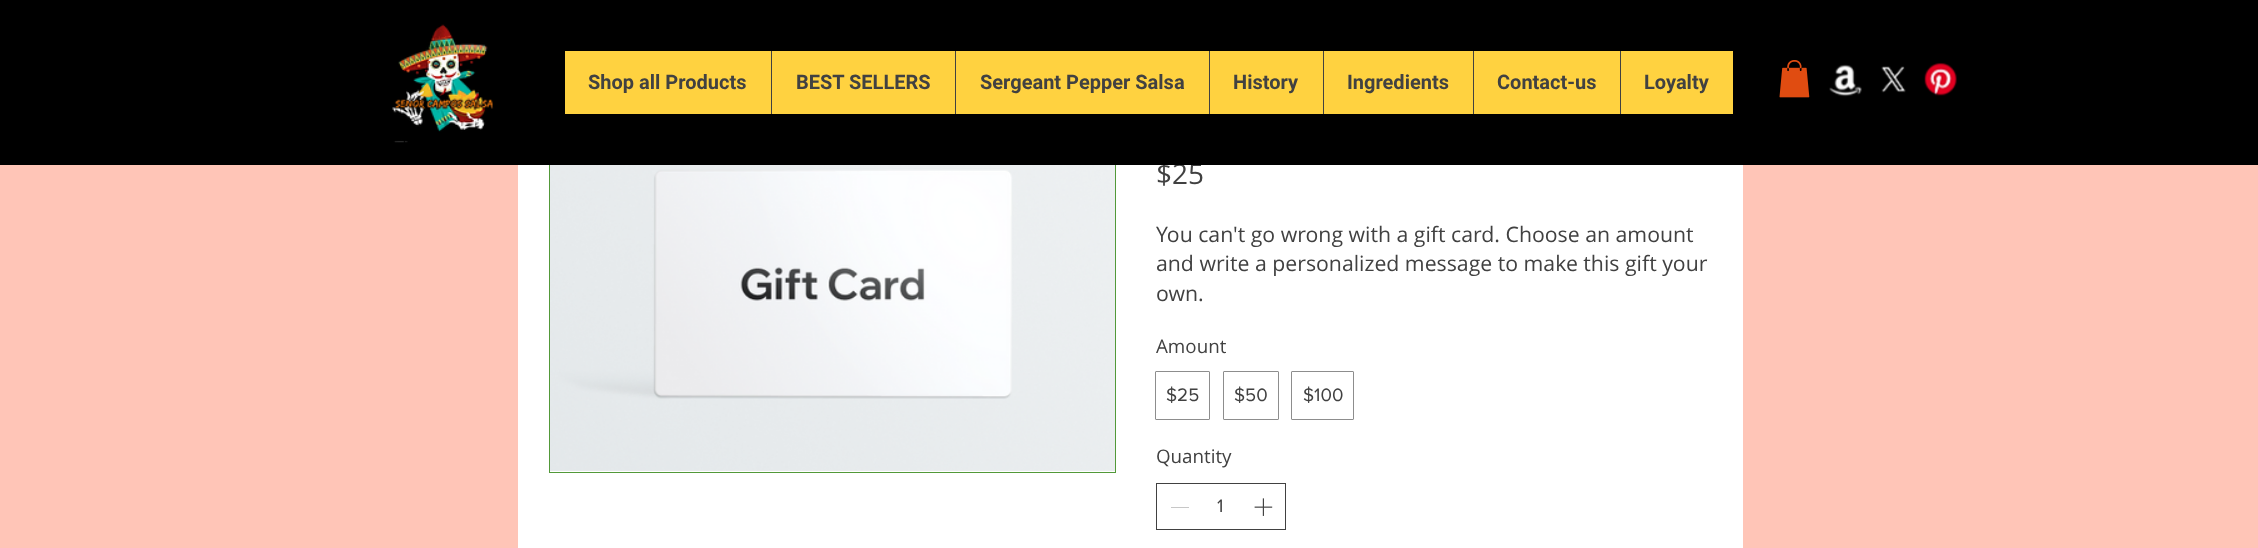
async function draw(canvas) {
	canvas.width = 2258;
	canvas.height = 548;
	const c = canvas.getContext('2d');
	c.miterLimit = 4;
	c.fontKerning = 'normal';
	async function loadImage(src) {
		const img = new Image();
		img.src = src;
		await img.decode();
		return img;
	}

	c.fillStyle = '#ffc5b7';
	c.fillRect(0, 0, 2258, 548);
	c.fillStyle = '#fff';
	c.fillRect(518, 165, 1225, 383);
	c.strokeStyle = '#529939';
	c.strokeRect(549.5, 94.5, 566, 378);
	c.font = '28px Open Sans';
	c.fillStyle = '#414141';
	c.fillText('$25', 1156, 184);
	c.fillStyle = '#000';
	c.fillRect(0, 0, 2258, 165);
	c.drawImage(await loadImage('img1.png'), 392, 24, 102, 119);
	c.fillStyle = '#ffd240';
	c.fillRect(565, 51, 1168, 63);
	c.font = 'bold 20px Roboto';
	c.fillStyle = '#414141';
	c.fillText('Shop all Products', 588, 89);
	c.fillRect(771, 51, 1, 63);
	c.fillText('BEST SELLERS', 796, 89);
	c.fillRect(955, 51, 1, 63);
	c.fillText('Sergeant Pepper Salsa', 980, 89);
	c.fillRect(1209, 51, 1, 63);
	c.fillText('History', 1233, 89);
	c.fillRect(1323, 51, 1, 63);
	c.fillText('Ingredients', 1347, 89);
	c.fillRect(1473, 51, 1, 63);
	c.fillText('Contact-us', 1497, 89);
	c.fillRect(1620, 51, 1, 63);
	c.fillText('Loyalty', 1644, 89);
	c.drawImage(await loadImage('img2.png'), 1779, 60, 31, 38);
	c.drawImage(await loadImage('img3.png'), 1829, 64, 33, 33);
	c.drawImage(await loadImage('img4.png'), 1881, 66, 25, 27);
	c.drawImage(await loadImage('img5.png'), 1924, 62, 33, 34);
	c.drawImage(await loadImage('img6.png'), 550, 165, 565, 306);
	c.font = '21.25px Open Sans';
	for (const [text, x, y] of [
		['You can\'t go wrong with a gift card. Choose an amount', 1156, 242],
		['and write a personalized message to make this gift your', 1156, 271],
		['own.', 1156, 301],
	]) {
		c.fillText(text, x, y);
	}
	c.font = '18.75px Open Sans';
	c.fillText('Amount', 1156, 353);
	c.beginPath();
	c.roundRect(1155.5, 371.5, 54, 48, 0.5);
	c.strokeStyle = '#8d8d8d';
	c.stroke();
	c.font = '18.75px "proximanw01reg"';
	c.fillText('$25', 1166, 401);
	c.beginPath();
	c.roundRect(1223.5, 371.5, 55, 48, 0.5);
	c.stroke();
	c.fillText('$50', 1234, 401);
	c.beginPath();
	c.roundRect(1291.5, 371.5, 62, 48, 0.5);
	c.stroke();
	c.fillText('$100', 1303, 401);
	c.font = '18.75px Open Sans';
	c.fillText('Quantity', 1156, 463);
	c.strokeStyle = '#414141';
	c.strokeRect(1156.5, 483.5, 129, 46);
	c.fillStyle = '#c7c7c7';
	c.fillRect(1171, 507, 18, 1);
	c.font = '18.75px "proximanw01reg"';
	c.fillStyle = '#414141';
	c.fillText('1', 1217, 512);
	c.drawImage(await loadImage('img7.png'), 1254, 498, 19, 18);
}

draw(document.querySelector('canvas'));
